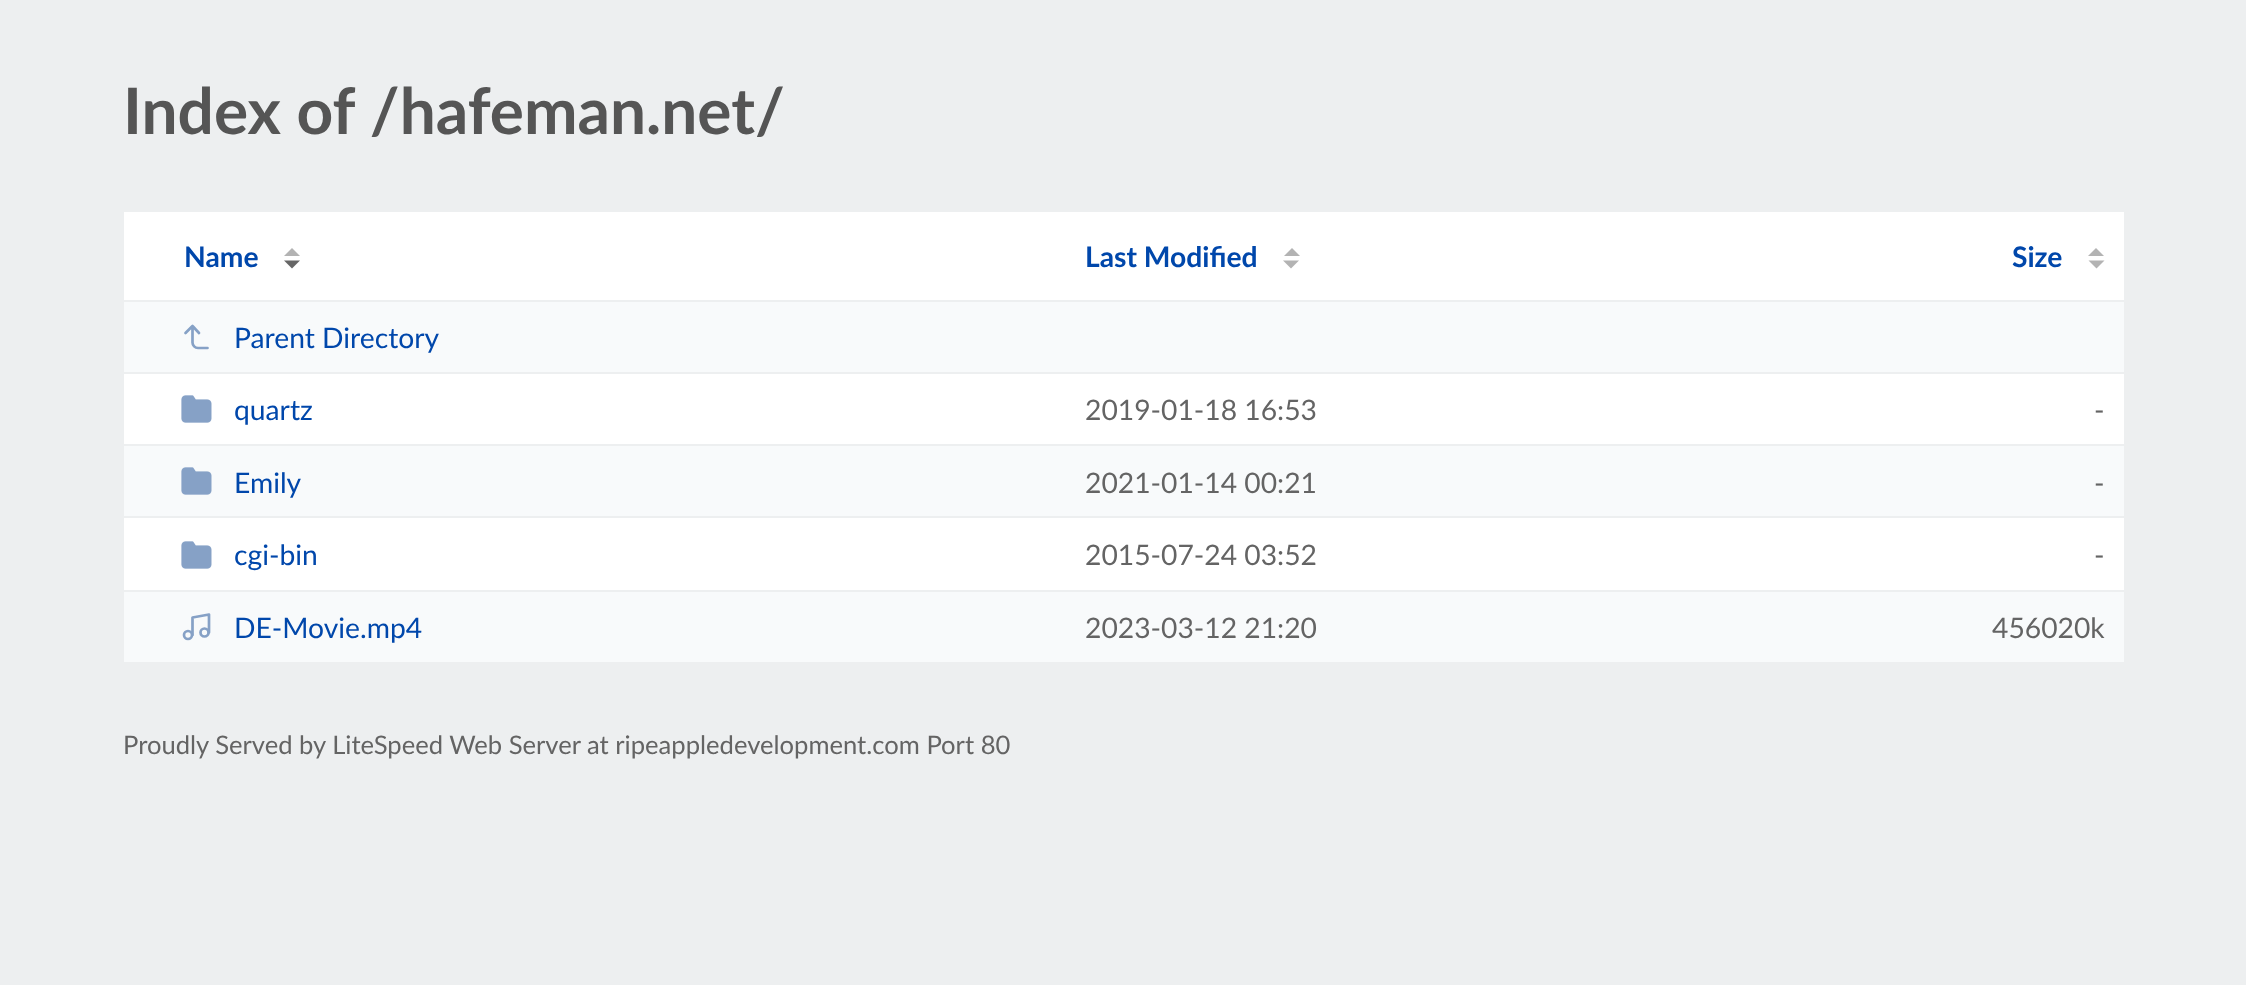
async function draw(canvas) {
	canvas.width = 2246;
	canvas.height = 985;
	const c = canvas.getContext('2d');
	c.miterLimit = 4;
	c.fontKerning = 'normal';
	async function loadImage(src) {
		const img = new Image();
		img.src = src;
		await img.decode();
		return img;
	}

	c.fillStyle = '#edeff0';
	c.fillRect(0, 0, 2246, 985);
	c.font = 'bold 64px Lato';
	c.fillStyle = '#555';
	c.fillText('Index of /hafeman.net/', 123, 134);
	c.fillStyle = '#fff';
	c.fillRect(124, 212, 2000, 378);
	c.font = 'bold 28.25px Lato';
	c.fillStyle = '#0047ab';
	c.fillText('Name', 184, 267);
	c.fillStyle = '#b3b3b3';
	c.beginPath();
	c.moveTo(300, 256);
	c.lineTo(284, 256);
	c.lineTo(292, 248);
	c.closePath();
	c.fill();
	c.fillStyle = '#666';
	c.beginPath();
	c.moveTo(284, 260.5);
	c.lineTo(300, 260.5);
	c.lineTo(292, 268.5);
	c.closePath();
	c.fill();
	c.fillStyle = '#0047ab';
	c.fillText('Last Modified', 1085, 267);
	c.fillStyle = '#b3b3b3';
	c.beginPath();
	c.moveTo(1300, 256);
	c.lineTo(1284, 256);
	c.lineTo(1292, 248);
	c.closePath();
	c.moveTo(1283, 260.5);
	c.lineTo(1299, 260.5);
	c.lineTo(1291, 268.5);
	c.closePath();
	c.fill();
	c.fillStyle = '#0047ab';
	c.fillText('Size', 2012, 267);
	c.fillStyle = '#b3b3b3';
	c.beginPath();
	c.moveTo(2104, 256);
	c.lineTo(2088, 256);
	c.lineTo(2096, 248);
	c.closePath();
	c.moveTo(2088.5, 260.5);
	c.lineTo(2104.5, 260.5);
	c.lineTo(2096.5, 268.5);
	c.closePath();
	c.fill();
	for (const [x, y, w, h, color] of [
		[124, 302, 2000, 70, '#f8fafb'],
		[124, 300, 2000, 2, '#edeff0'],
		[124, 372, 2000, 2, '#edeff0'],
	]) {
		c.fillStyle = color;
		c.fillRect(x, y, w, h);
	}
	c.beginPath();
	c.moveTo(199, 333);
	c.lineTo(192.5, 326);
	c.lineTo(185.5, 333);
	c.moveTo(207.5, 348);
	c.lineTo(198, 348);
	c.bezierCurveTo(195, 348, 192.5, 345.5, 192.5, 342.5);
	c.lineTo(192.5, 326);
	c.strokeStyle = '#86a1c6';
	c.lineWidth = 2.7;
	c.lineCap = 'round';
	c.lineJoin = 'round';
	c.stroke();
	c.font = '28.25px Lato';
	c.fillStyle = '#0047ab';
	c.fillText('Parent Directory', 234, 348);
	c.drawImage(await loadImage('img1.png'), 181, 395, 31, 28);
	c.fillText('quartz', 234, 420);
	c.fillStyle = '#646464';
	c.fillText('2019-01-18 16:53', 1085, 420);
	c.fillText('-', 2094, 420);
	for (const [x, y, w, h, color] of [
		[124, 446, 2000, 70, '#f8fafb'],
		[124, 444, 2000, 2, '#edeff0'],
		[124, 516, 2000, 2, '#edeff0'],
	]) {
		c.fillStyle = color;
		c.fillRect(x, y, w, h);
	}
	c.drawImage(await loadImage('img2.png'), 181, 467, 31, 28);
	c.fillStyle = '#0047ab';
	c.fillText('Emily', 234, 493);
	c.fillStyle = '#646464';
	c.fillText('2021-01-14 00:21', 1085, 493);
	c.fillText('-', 2094, 493);
	c.drawImage(await loadImage('img1.png'), 181, 541, 31, 28);
	c.fillStyle = '#0047ab';
	c.fillText('cgi-bin', 234, 565);
	c.fillStyle = '#646464';
	c.fillText('2015-07-24 03:52', 1085, 565);
	c.fillText('-', 2094, 565);
	c.fillStyle = '#f8fafb';
	c.fillRect(124, 592, 2000, 70);
	c.beginPath();
	c.moveTo(192.5, 635);
	c.lineTo(192.5, 617.5);
	c.lineTo(209, 614.5);
	c.lineTo(209, 632.5);
	c.stroke();
	c.fillStyle = '#0047ab';
	c.fillText('DE-Movie.mp4', 234, 638);
	c.beginPath();
	c.arc(188, 635, 4, 0, 2 * Math.PI);
	c.stroke();
	c.beginPath();
	c.arc(204.5, 632.5, 4, 0, 2 * Math.PI);
	c.stroke();
	c.fillStyle = '#646464';
	c.fillText('2023-03-12 21:20', 1085, 638);
	c.fillText('456020k', 1992, 638);
	c.font = '25.6px Lato';
	c.fillText('Proudly Served by LiteSpeed Web Server at ripeappledevelopment.com Port 80', 123, 754);
}

draw(document.querySelector('canvas'));
